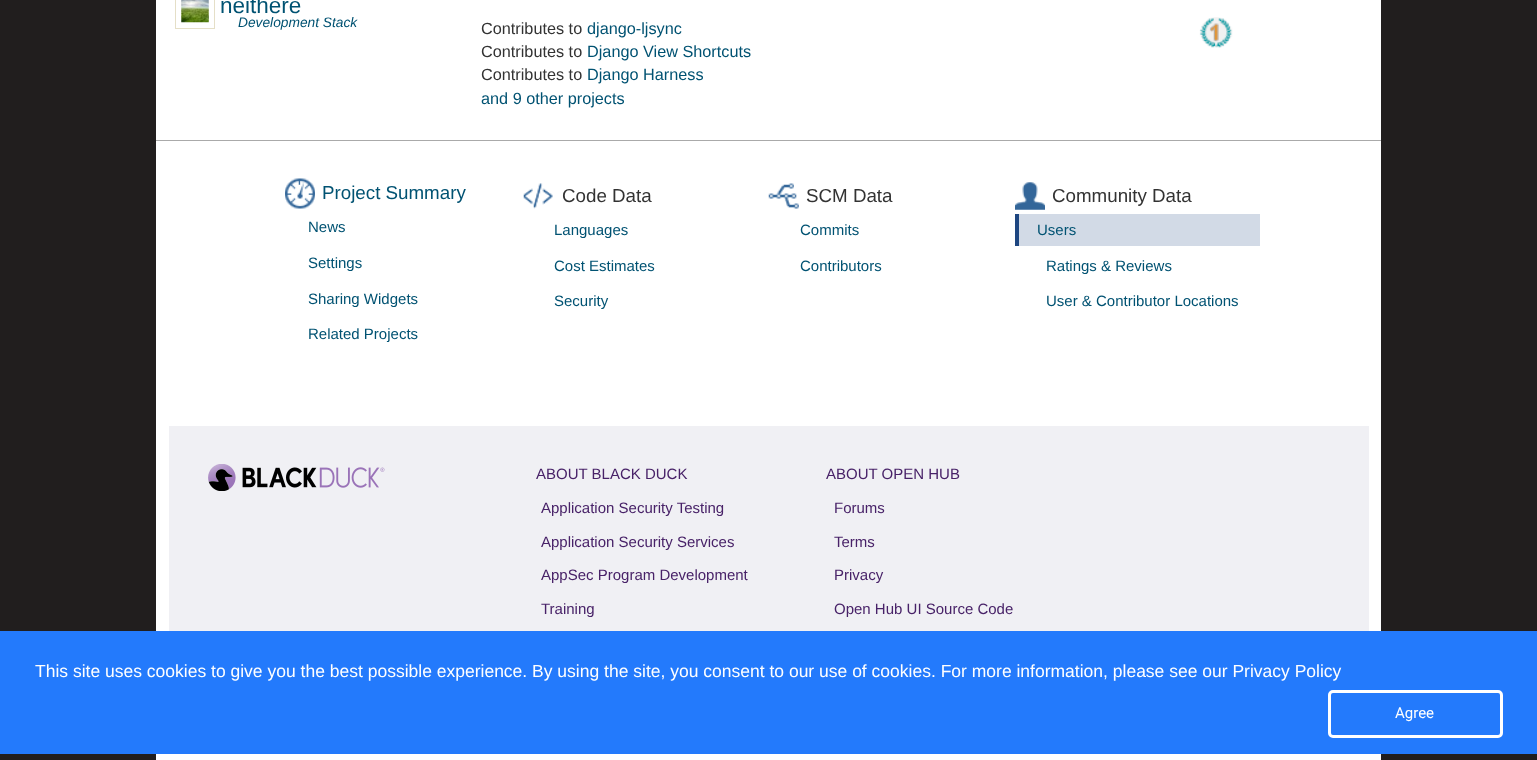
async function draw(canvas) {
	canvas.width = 1537;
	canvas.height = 760;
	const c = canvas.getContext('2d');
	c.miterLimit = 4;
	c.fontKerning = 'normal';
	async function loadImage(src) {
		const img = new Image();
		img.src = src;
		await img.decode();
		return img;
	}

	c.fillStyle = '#211e1e';
	c.fillRect(0, 0, 1537, 760);
	c.fillStyle = '#fff';
	c.fillRect(156, 0, 1225, 760);
	c.strokeStyle = '#e5dfc7';
	c.strokeRect(175.5, -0.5, 39, 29);
	c.drawImage(await loadImage('img1.png'), 181, 0, 28, 23);
	c.font = '22.5px Liberation Sans';
	c.fillStyle = '#005272';
	c.fillText('neithere', 220, 13);
	c.font = 'italic 13.75px Liberation Sans';
	c.fillText('Development Stack', 238, 27);
	c.font = '16.25px Liberation Sans';
	c.fillStyle = '#333';
	c.fillText('Contributes to', 481, 34);
	c.fillStyle = '#005272';
	c.fillText('django-ljsync', 587, 34);
	c.fillStyle = '#333';
	c.fillText('Contributes to', 481, 57);
	c.fillStyle = '#005272';
	c.fillText('Django View Shortcuts', 587, 57);
	c.fillStyle = '#333';
	c.fillText('Contributes to', 481, 80);
	c.fillStyle = '#005272';
	c.fillText('Django Harness', 587, 80);
	c.fillText('and 9 other projects', 481, 104);
	c.drawImage(await loadImage('img2.png'), 1199, 17, 34, 31);
	c.fillStyle = '#aaa';
	c.fillRect(156, 140, 1225, 1);
	c.drawImage(await loadImage('img3.png'), 285, 178, 30, 31);
	c.font = '18.75px Liberation Sans';
	c.fillStyle = '#005272';
	c.fillText('Project Summary', 322, 199);
	c.font = '15px Liberation Sans';
	for (const [text, x, y] of [
		['News', 308, 232],
		['Settings', 308, 268],
		['Sharing Widgets', 308, 304],
		['Related Projects', 308, 339],
	]) {
		c.fillText(text, x, y);
	}
	c.drawImage(await loadImage('img4.png'), 523, 183, 30, 26);
	c.font = '18.75px Liberation Sans';
	c.fillStyle = '#333';
	c.fillText('Code Data', 562, 202);
	c.font = '15px Liberation Sans';
	c.fillStyle = '#005272';
	for (const [text, x, y] of [
		['Languages', 554, 235],
		['Cost Estimates', 554, 271],
		['Security', 554, 306],
	]) {
		c.fillText(text, x, y);
	}
	c.drawImage(await loadImage('img5.png'), 768, 183, 31, 26);
	c.font = '18.75px Liberation Sans';
	c.fillStyle = '#333';
	c.fillText('SCM Data', 806, 202);
	c.font = '15px Liberation Sans';
	c.fillStyle = '#005272';
	c.fillText('Commits', 800, 235);
	c.fillText('Contributors', 800, 271);
	c.drawImage(await loadImage('img6.png'), 1015, 182, 30, 28);
	c.font = '18.75px Liberation Sans';
	c.fillStyle = '#333';
	c.fillText('Community Data', 1052, 202);
	c.fillStyle = '#d2dae6';
	c.fillRect(1019, 214, 241, 32);
	c.fillStyle = '#1e4681';
	c.fillRect(1015, 214, 4, 32);
	c.font = '15px Liberation Sans';
	c.fillStyle = '#005272';
	for (const [text, x, y] of [
		['Users', 1037, 235],
		['Ratings & Reviews', 1046, 271],
		['User & Contributor Locations', 1046, 306],
	]) {
		c.fillText(text, x, y);
	}
	c.fillStyle = '#f0f0f4';
	c.fillRect(169, 426, 1200, 205);
	c.drawImage(await loadImage('img7.png'), 208, 464, 177, 27);
	c.fillStyle = '#482268';
	for (const [text, x, y] of [
		['ABOUT BLACK DUCK', 536, 479],
		['Application Security Testing', 541, 513],
		['Application Security Services', 541, 547],
		['AppSec Program Development', 541, 580],
		['Training', 541, 614],
		['ABOUT OPEN HUB', 826, 479],
		['Forums', 834, 513],
		['Terms', 834, 547],
		['Privacy', 834, 580],
		['Open Hub UI Source Code', 834, 614],
	]) {
		c.fillText(text, x, y);
	}
	c.fillStyle = '#237afc';
	c.fillRect(0, 631, 1537, 123);
	c.font = '17.5px Liberation Sans';
	c.fillStyle = '#fff';
	c.fillText('This site uses cookies to give you the best possible experience. By using the site, you consent to our use of cookies. For more information, please see our Privacy Policy', 35, 677);
	c.beginPath();
	c.roundRect(1329.5, 691.5, 172, 45, 3.5);
	c.strokeStyle = '#fff';
	c.lineWidth = 3;
	c.stroke();
	c.font = '15px Roboto';
	c.fillText('Agree', 1395, 718);
}

draw(document.querySelector('canvas'));
